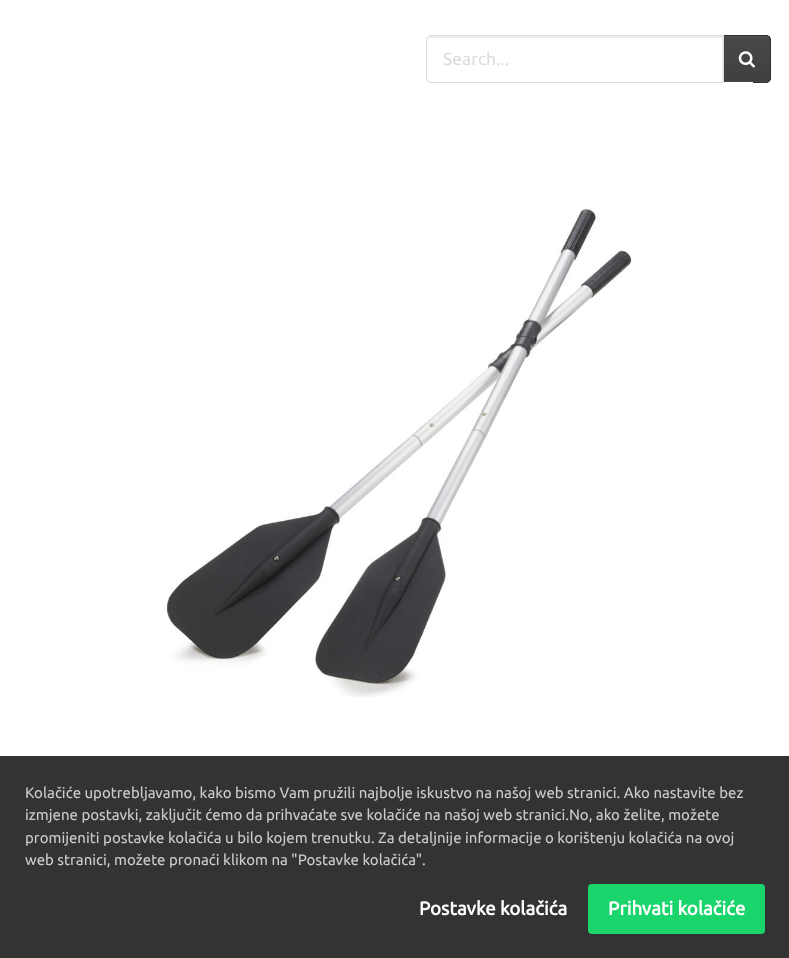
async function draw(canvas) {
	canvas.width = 789;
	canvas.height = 958;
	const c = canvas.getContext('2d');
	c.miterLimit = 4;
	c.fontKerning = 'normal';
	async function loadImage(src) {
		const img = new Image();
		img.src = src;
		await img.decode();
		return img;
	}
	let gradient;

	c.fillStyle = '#fff';
	c.fillRect(0, 0, 789, 958);
	c.fillStyle = '#474949';
	c.beginPath();
	c.roundRect(723, 35, 48, 48, [0, 5, 5, 0]);
	c.fill();
	gradient = c.createLinearGradient(747, 36, 747, 81);
	gradient.addColorStop(0, '#4f5151');
	gradient.addColorStop(0.06, '#474949');
	gradient.addColorStop(1, '#3f4141');
	c.fillStyle = gradient;
	c.fillRect(724, 36, 46, 45);
	c.beginPath();
	c.roundRect(723.5, 35.5, 47, 47, [0, 4.5, 4.5, 0]);
	c.strokeStyle = '#2e2f2f';
	c.stroke();
	c.drawImage(await loadImage('img2.png'), 166, 82, 587, 615);
	c.fillStyle = '#fff';
	c.beginPath();
	c.roundRect(426, 35, 298, 48, [5, 0, 0, 5]);
	c.fill();
	c.fillStyle = '#ececec';
	c.beginPath();
	c.moveTo(431, 38);
	c.lineTo(722, 38);
	c.lineTo(722, 81);
	c.lineTo(723, 81);
	c.lineTo(723, 36);
	c.lineTo(432, 36);
	c.bezierCurveTo(429, 36, 428, 38, 428, 41);
	c.bezierCurveTo(428, 39, 429, 38, 431, 38);
	c.closePath();
	c.fill();
	c.beginPath();
	c.roundRect(426.5, 35.5, 297, 47, [4.5, 0, 0, 4.5]);
	c.strokeStyle = '#ddd';
	c.stroke();
	c.font = '17.5px Ubuntu';
	c.fillStyle = '#ddd';
	c.fillText('Search...', 443, 65);
	c.drawImage(await loadImage('img1.png'), 738, 51, 17, 17);
	c.fillStyle = '#333';
	c.fillRect(0, 756, 789, 202);
	c.font = '15px Ubuntu';
	c.fillStyle = '#ccc';
	for (const [text, x, y] of [
		['Kolačiće upotrebljavamo, kako bismo Vam pružili najbolje iskustvo na našoj web stranici. Ako nastavite bez', 25, 798],
		['izmjene postavki, zaključit ćemo da prihvaćate sve kolačiće na našoj web stranici.No, ako želite, možete', 25, 820],
		['promijeniti postavke kolačića u bilo kojem trenutku. Za detaljnije informacije o korištenju kolačića na ovoj', 25, 843],
		['web stranici, možete pronaći klikom na "Postavke kolačića".', 25, 865],
	]) {
		c.fillText(text, x, y);
	}
	c.font = 'bold 18.75px Ubuntu';
	c.fillStyle = '#fff';
	c.fillText('Postavke kolačića', 419, 915);
	c.fillStyle = '#1ad56c';
	c.beginPath();
	c.roundRect(588, 884, 177, 50, 4);
	c.fill();
	c.fillStyle = '#fff';
	c.fillText('Prihvati kolačiće', 608, 915);
}

draw(document.querySelector('canvas'));
